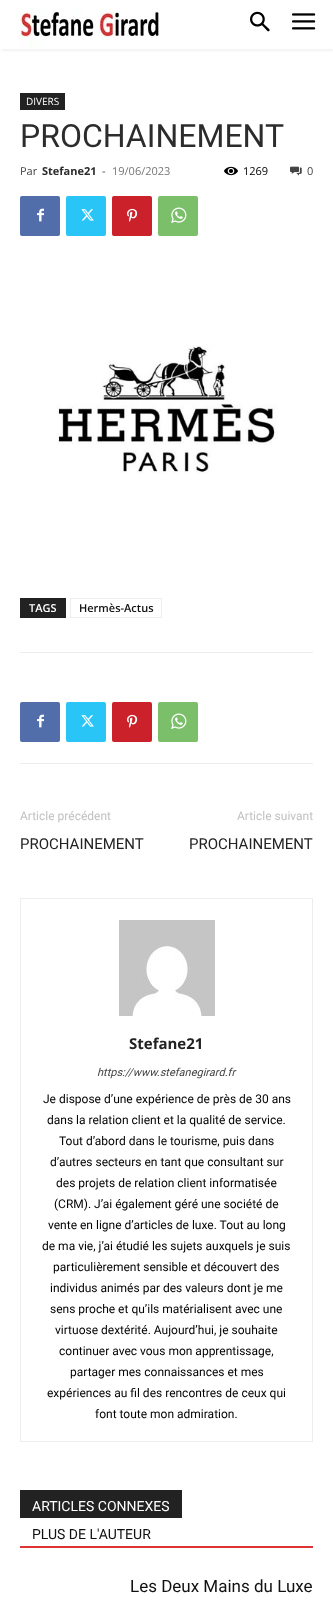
async function draw(canvas) {
	canvas.width = 333;
	canvas.height = 1602;
	const c = canvas.getContext('2d');
	c.miterLimit = 4;
	c.fontKerning = 'normal';
	async function loadImage(src) {
		const img = new Image();
		img.src = src;
		await img.decode();
		return img;
	}

	c.fillStyle = '#fff';
	c.fillRect(0, 0, 333, 1602);
	c.drawImage(await loadImage('img1.png'), 20, 8, 140, 40);
	c.drawImage(await loadImage('img2.png'), 250, 11, 20, 21);
	c.drawImage(await loadImage('img3.png'), 292, 13, 24, 17);
	c.save();
	c.beginPath();
	c.rect(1, 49, 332, 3);
	c.clip();
	c.fillStyle = '#0000000f';
	c.filter = 'blur(2px)';
	c.beginPath();
	c.rect(1, 2, 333, 49);
	c.fill();
	c.filter = 'none';
	c.restore();
	c.fillStyle = '#222';
	c.fillRect(20, 93, 45, 17);
	c.font = '10px Open Sans';
	c.fillStyle = '#fff';
	c.fillText('DIVERS', 26, 105);
	c.font = '32px Roboto';
	c.fillStyle = '#2c2c2c';
	c.fillText('PROCHAINEMENT', 20, 147);
	c.font = '11px Open Sans';
	c.fillStyle = '#444';
	c.fillText('Par', 20, 175);
	c.font = 'bold 11px Open Sans';
	c.fillStyle = '#2c2c2c';
	c.fillText('Stefane21', 42, 175);
	c.font = '11px Open Sans';
	c.fillStyle = '#444';
	c.fillText('-', 102, 175);
	c.fillStyle = '#767676';
	c.fillText('19/06/2023', 112, 175);
	c.drawImage(await loadImage('img4.png'), 224, 166, 14, 10);
	c.fillStyle = '#000';
	c.fillText('1269', 243, 175);
	c.drawImage(await loadImage('img5.png'), 290, 166, 12, 10);
	c.fillStyle = '#444';
	c.fillText('0', 307, 175);
	c.fillStyle = '#516eab';
	c.beginPath();
	c.roundRect(20, 196, 40, 40, 2);
	c.fill();
	c.drawImage(await loadImage('img6.png'), 37, 208, 7, 14);
	c.fillStyle = '#29c5f6';
	c.beginPath();
	c.roundRect(66, 196, 40, 40, 2);
	c.fill();
	c.drawImage(await loadImage('img7.png'), 81, 209, 13, 12);
	c.fillStyle = '#ca212a';
	c.beginPath();
	c.roundRect(112, 196, 40, 40, 2);
	c.fill();
	c.drawImage(await loadImage('img8.png'), 127, 208, 11, 14);
	c.fillStyle = '#7bbf6a';
	c.beginPath();
	c.roundRect(158, 196, 40, 40, 2);
	c.fill();
	c.drawImage(await loadImage('img9.png'), 171, 207, 16, 16);
	c.drawImage(await loadImage('img10.png'), 57, 345, 221, 129);
	c.fillStyle = '#222';
	c.fillRect(20, 598, 46, 20);
	c.font = '600 11px Open Sans';
	c.fillStyle = '#fff';
	c.fillText('TAGS', 29, 612);
	c.strokeStyle = '#ededed';
	c.strokeRect(70.5, 598.5, 91, 19);
	c.fillStyle = '#111';
	c.fillText('Hermès-Actus', 79, 612);
	c.fillStyle = '#ededed';
	c.fillRect(20, 652, 293, 1);
	c.fillRect(20, 763, 293, 1);
	c.fillStyle = '#516eab';
	c.beginPath();
	c.roundRect(20, 702, 40, 40, 2);
	c.fill();
	c.drawImage(await loadImage('img6.png'), 37, 714, 7, 14);
	c.fillStyle = '#29c5f6';
	c.beginPath();
	c.roundRect(66, 702, 40, 40, 2);
	c.fill();
	c.drawImage(await loadImage('img7.png'), 81, 715, 13, 12);
	c.fillStyle = '#ca212a';
	c.beginPath();
	c.roundRect(112, 702, 40, 40, 2);
	c.fill();
	c.drawImage(await loadImage('img8.png'), 127, 714, 11, 14);
	c.fillStyle = '#7bbf6a';
	c.beginPath();
	c.roundRect(158, 702, 40, 40, 2);
	c.fill();
	c.drawImage(await loadImage('img9.png'), 171, 713, 16, 16);
	c.font = '12px Roboto';
	c.fillStyle = '#c1c1c1';
	c.fillText('Article précédent', 20, 820);
	c.font = '15px Roboto';
	c.fillStyle = '#222';
	c.fillText('PROCHAINEMENT', 20, 849);
	c.font = '12px Roboto';
	c.fillStyle = '#c1c1c1';
	c.fillText('Article suivant', 237, 820);
	c.font = '15px Roboto';
	c.fillStyle = '#222';
	c.fillText('PROCHAINEMENT', 189, 849);
	c.strokeRect(20.5, 898.5, 292, 543);
	c.drawImage(await loadImage('img11.png'), 119, 920, 96, 96);
	c.font = 'bold 15px Open Sans';
	c.fillText('Stefane21', 129, 1049);
	c.font = 'italic 11px Roboto';
	c.fillStyle = '#444';
	c.fillText('https://www.stefanegirard.fr', 97, 1076);
	c.font = '12px Roboto';
	c.fillStyle = '#000';
	for (const [text, x, y] of [
		['Je dispose d’une expérience de près de 30 ans', 43, 1103],
		['dans la relation client et la qualité de service.', 47, 1124],
		['Tout d’abord dans le tourisme, puis dans', 59, 1145],
		['d’autres secteurs en tant que consultant sur', 50, 1166],
		['des projets de relation client informatisée', 56, 1187],
		['(CRM). J’ai également géré une société de', 54, 1208],
		['vente en ligne d’articles de luxe. Tout au long', 48, 1229],
		['de ma vie, j’ai étudié les sujets auxquels je suis', 42, 1250],
		['particulièrement sensible et découvert des', 53, 1271],
		['individus animés par des valeurs dont je me', 50, 1292],
		['sens proche et qu’ils matérialisent avec une', 50, 1313],
		['virtuose dextérité. Aujourd’hui, je souhaite', 55, 1334],
		['continuer avec vous mon apprentissage,', 59, 1355],
		['partager mes connaissances et mes', 70, 1376],
		['expériences au fil des rencontres de ceux qui', 47, 1397],
		['font toute mon admiration.', 95, 1418],
	]) {
		c.fillText(text, x, y);
	}
	c.fillStyle = '#d33';
	c.fillRect(20, 1546, 293, 2);
	c.fillStyle = '#222';
	c.fillRect(20, 1490, 162, 28);
	c.font = '14px Roboto';
	c.fillStyle = '#fff';
	c.fillText('ARTICLES CONNEXES', 32, 1511);
	c.fillStyle = '#111';
	c.fillText('PLUS DE L\'AUTEUR', 32, 1539);
	c.font = '17px Roboto';
	c.fillText('Les Deux Mains du Luxe', 130, 1592);
}

draw(document.querySelector('canvas'));
